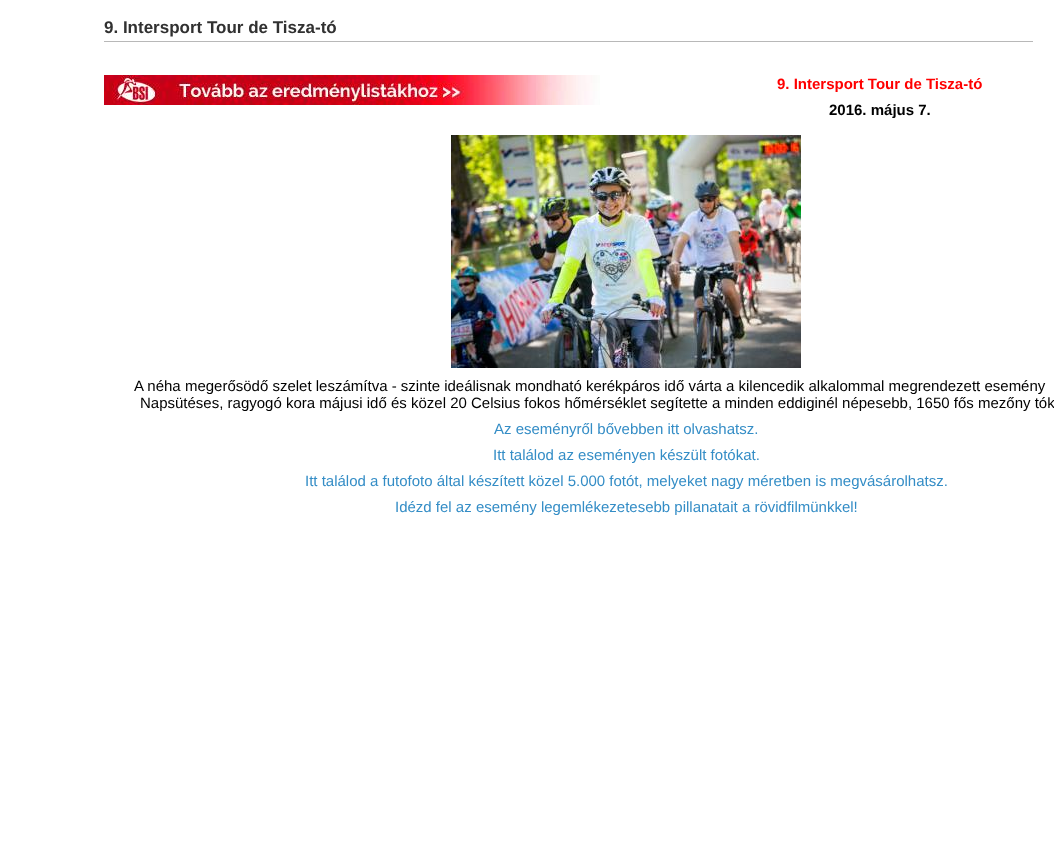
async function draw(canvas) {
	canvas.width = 1054;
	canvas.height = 863;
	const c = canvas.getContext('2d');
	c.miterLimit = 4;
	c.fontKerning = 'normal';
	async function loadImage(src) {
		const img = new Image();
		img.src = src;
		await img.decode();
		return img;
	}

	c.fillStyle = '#fff';
	c.fillRect(0, 0, 1054, 863);
	c.fillStyle = '#b8b8b8';
	c.fillRect(104, 41, 929, 1);
	c.font = 'bold 17px Liberation Sans';
	c.fillStyle = '#313131';
	c.fillText('9. Intersport Tour de Tisza-tó', 104, 33);
	c.drawImage(await loadImage('img1.png'), 104, 75, 496, 30);
	c.font = 'bold 15px Liberation Sans';
	c.fillStyle = '#f00';
	c.fillText('9. Intersport Tour de Tisza-tó', 777, 89);
	c.fillStyle = '#010101';
	c.fillText('2016. május 7.', 829, 115);
	c.drawImage(await loadImage('img2.png'), 451, 135, 350, 233);
	c.font = '15px Liberation Sans';
	c.fillText('A néha megerősödő szelet leszámítva - szinte ideálisnak mondható kerékpáros idő várta a kilencedik alkalommal megrendezett esemény', 134, 391);
	c.fillText('Napsütéses, ragyogó kora májusi idő és közel 20 Celsius fokos hőmérséklet segítette a minden eddiginél népesebb, 1650 fős mezőny tók', 140, 408);
	c.fillStyle = '#348dc6';
	for (const [text, x, y] of [
		['Az eseményről bővebben itt olvashatsz.', 494, 434],
		['Itt találod az eseményen készült fotókat.', 493, 460],
		['Itt találod a futofoto által készített közel 5.000 fotót, melyeket nagy méretben is megvásárolhatsz.', 305, 486],
		['Idézd fel az esemény legemlékezetesebb pillanatait a rövidfilmünkkel!', 395, 512],
	]) {
		c.fillText(text, x, y);
	}
}

draw(document.querySelector('canvas'));
